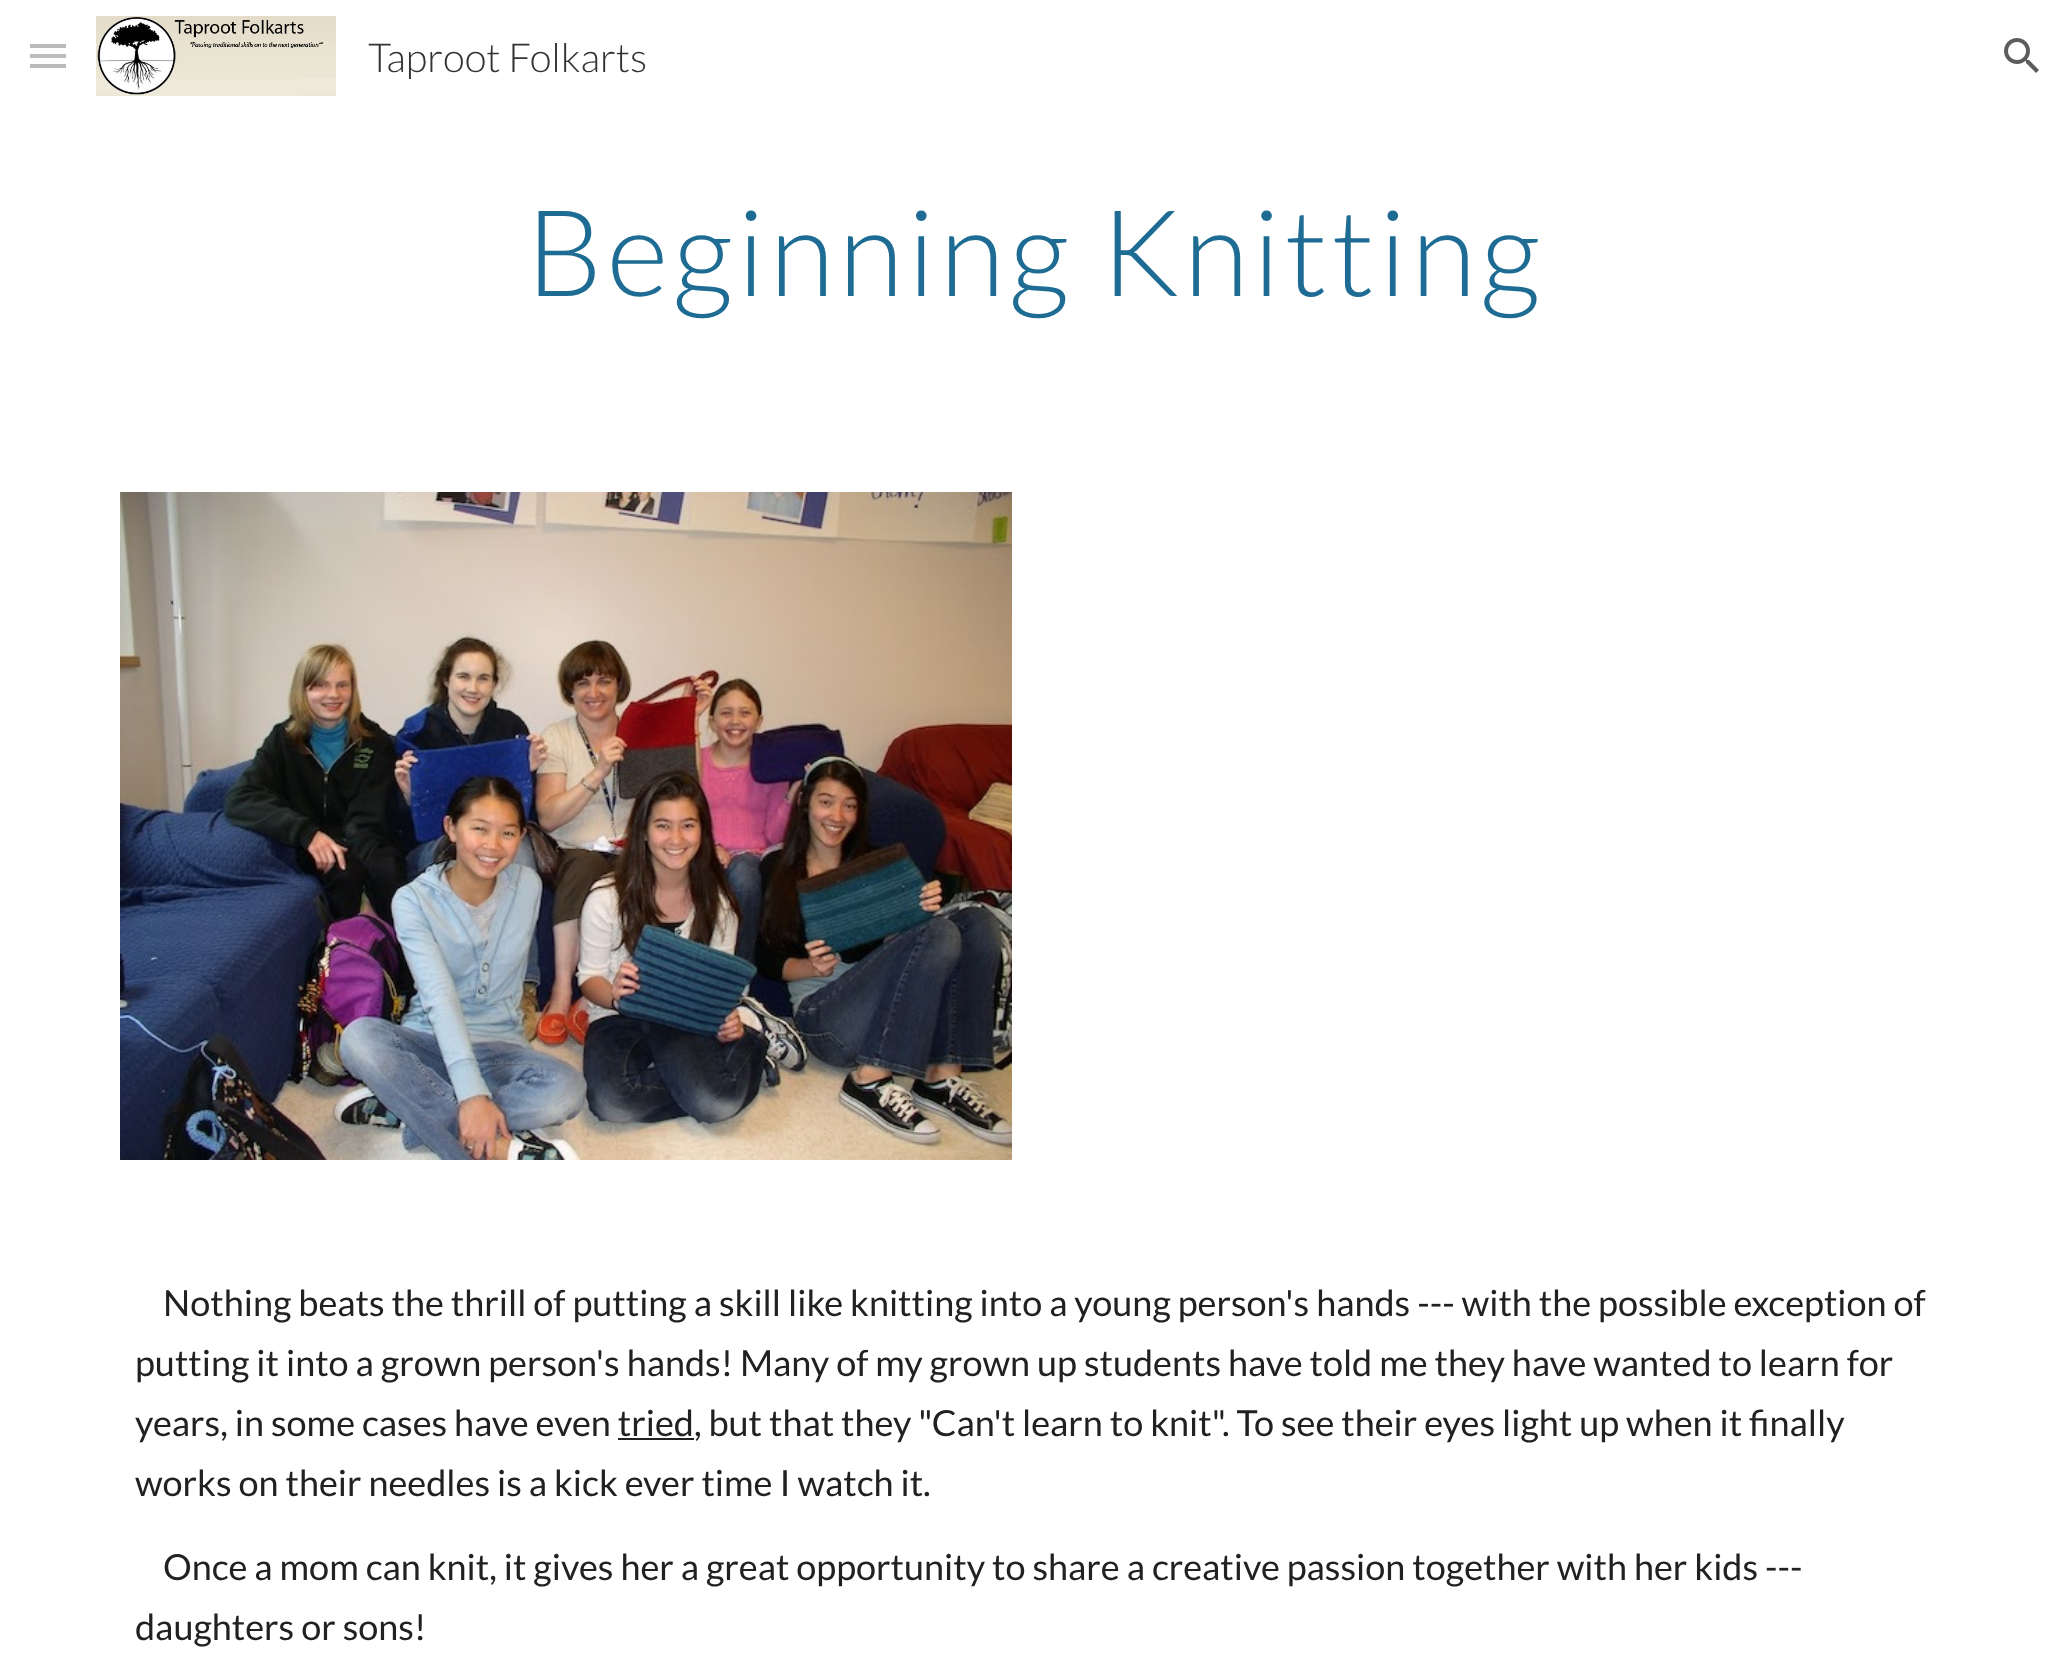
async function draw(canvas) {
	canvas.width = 2069;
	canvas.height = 1673;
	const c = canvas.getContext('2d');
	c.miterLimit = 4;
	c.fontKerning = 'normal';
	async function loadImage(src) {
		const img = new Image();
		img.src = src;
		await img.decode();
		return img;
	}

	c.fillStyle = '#fff';
	c.fillRect(0, 0, 2069, 1673);
	for (const [x, y, w, h, color] of [
		[30, 44, 36, 4, '#bbb'],
		[30, 54, 36, 4, '#bbb'],
		[30, 64, 36, 4, '#bbb'],
	]) {
		c.fillStyle = color;
		c.fillRect(x, y, w, h);
	}
	c.drawImage(await loadImage('img1.png'), 96, 16, 240, 80);
	c.font = '300 40px Lato';
	c.fillStyle = '#333';
	c.fillText('Taproot Folkarts', 368, 72);
	c.drawImage(await loadImage('img2.png'), 2004, 38, 35, 35);
	c.letterSpacing = '4px';
	c.font = '300 120px Lato';
	c.fillStyle = '#1e6c93';
	c.fillText('Beginning Knitting', 526, 296);
	c.drawImage(await loadImage('img3.png'), 120, 492, 892, 668);
	c.letterSpacing = '0px';
	c.font = '36px Lato';
	c.fillStyle = '#212121';
	for (const [text, x, y] of [
		['Nothing beats the thrill of putting a skill like knitting into a young person\'s hands --- with the possible exception of', 163, 1316],
		['putting it into a grown person\'s hands! Many of my grown up students have told me they have wanted to learn for', 135, 1376],
		['years, in some cases have even tried, but that they "Can\'t learn to knit". To see their eyes light up when it finally', 135, 1436],
	]) {
		c.fillText(text, x, y);
	}
	c.fillRect(618, 1438, 76, 2);
	for (const [text, x, y] of [
		['works on their needles is a kick ever time I watch it.', 135, 1496],
		['Once a mom can knit, it gives her a great opportunity to share a creative passion together with her kids ---', 163, 1580],
		['daughters or sons!', 135, 1640],
	]) {
		c.fillText(text, x, y);
	}
}

draw(document.querySelector('canvas'));
